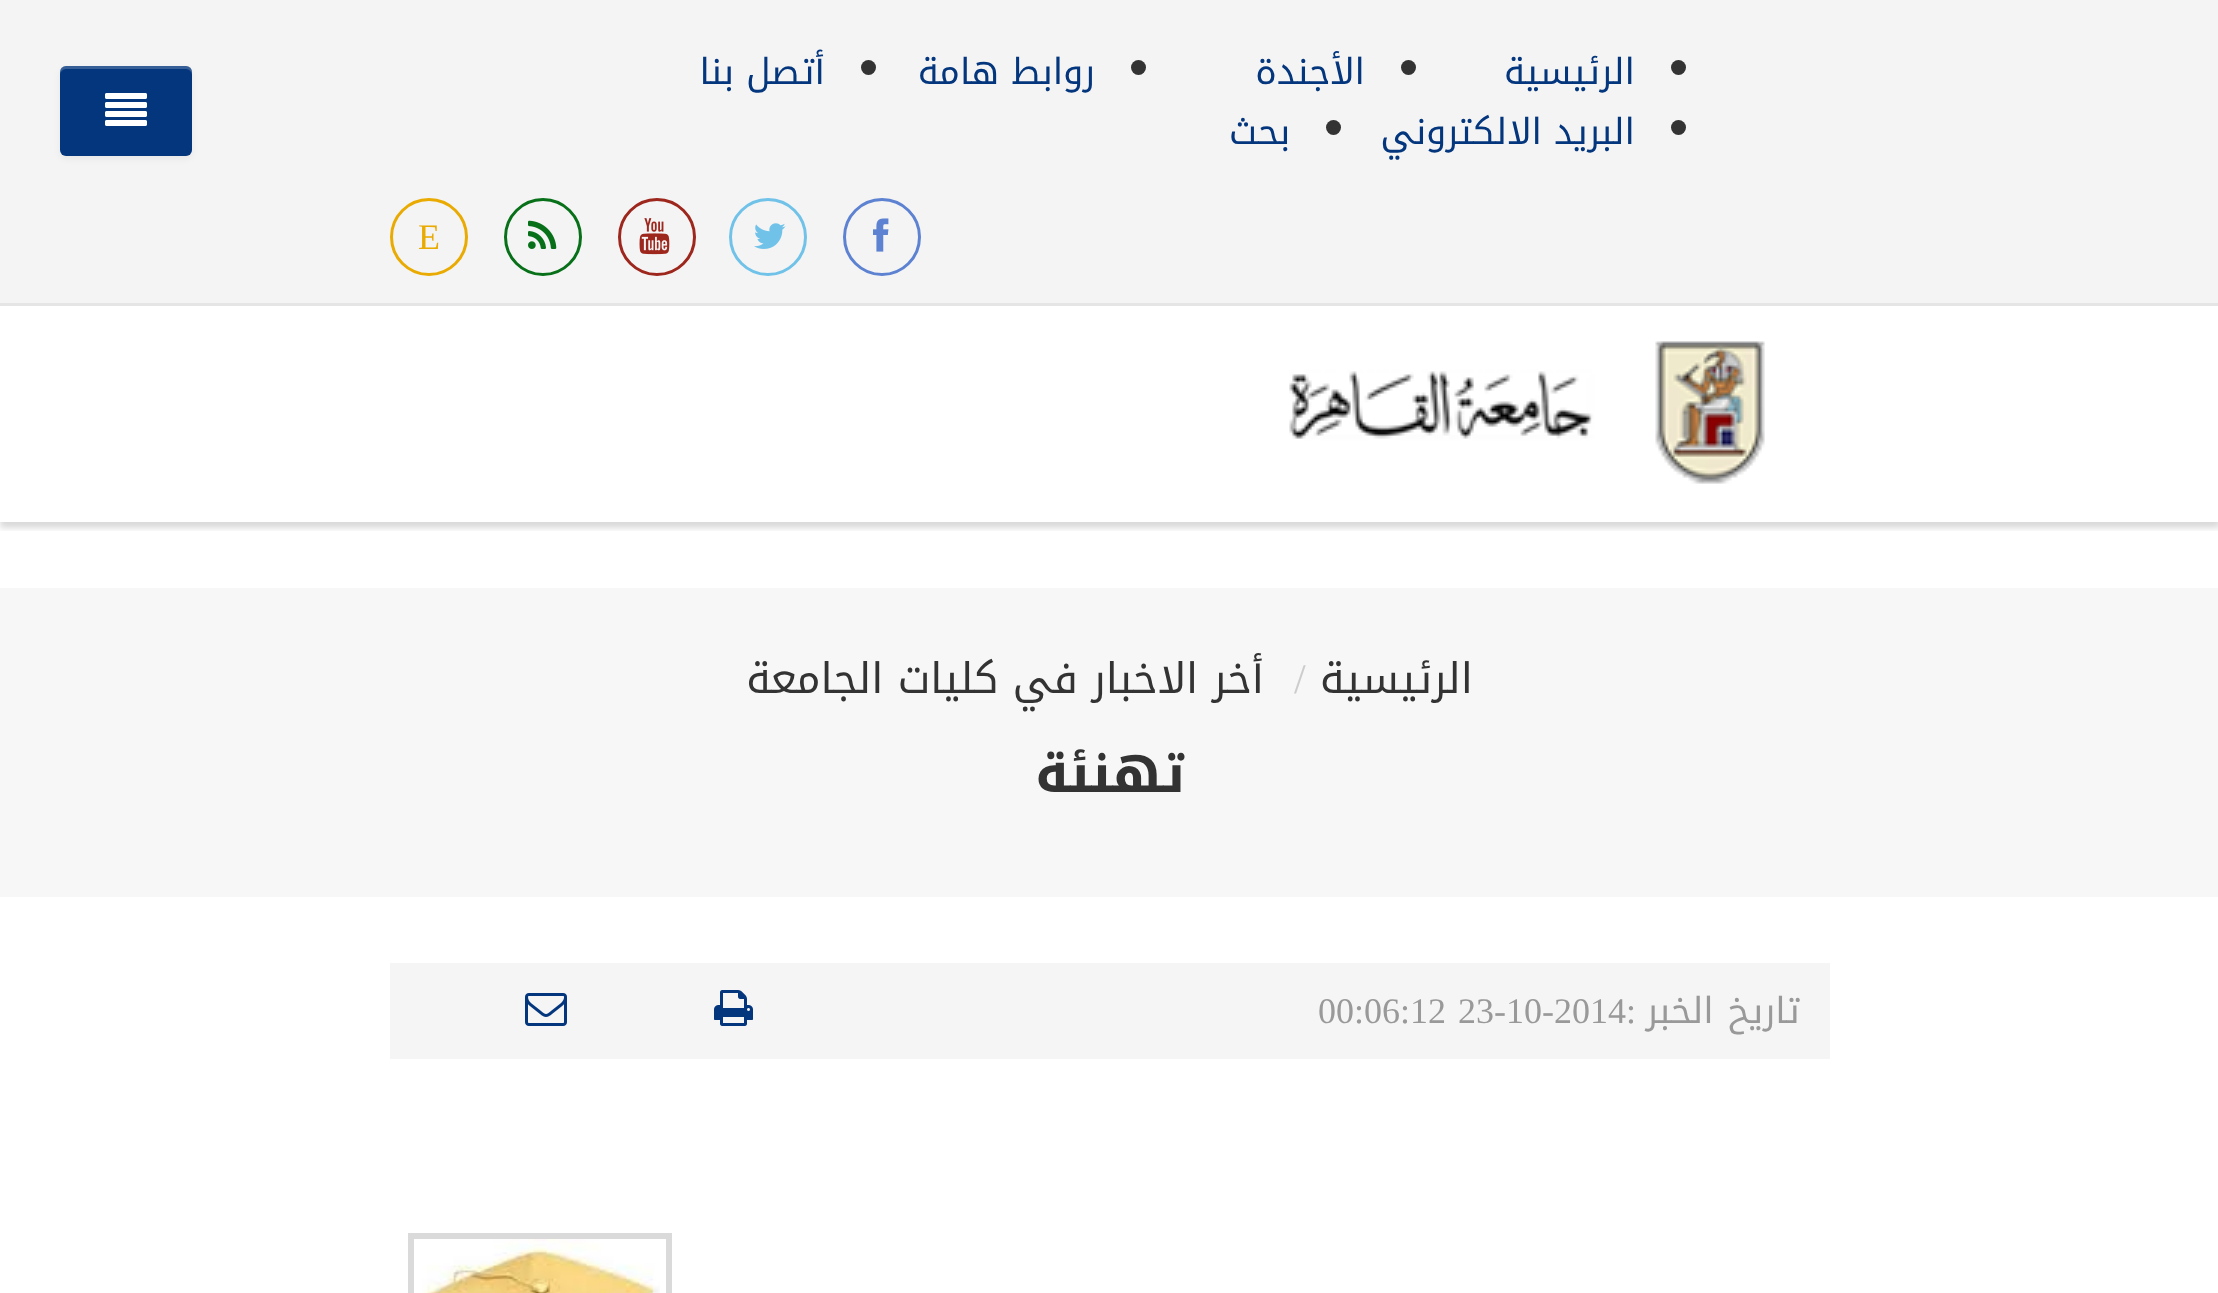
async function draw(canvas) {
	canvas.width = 2218;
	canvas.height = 1293;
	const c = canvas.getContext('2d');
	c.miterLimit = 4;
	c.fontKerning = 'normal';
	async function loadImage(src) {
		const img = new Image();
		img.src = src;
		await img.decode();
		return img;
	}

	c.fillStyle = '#fff';
	c.fillRect(0, 0, 2218, 1293);
	c.fillStyle = '#f4f4f4';
	c.fillRect(0, 0, 2218, 303);
	c.fillStyle = '#333';
	c.beginPath();
	c.arc(1678.5, 67.5, 7.5, 0, 2 * Math.PI);
	c.fill();
	c.direction = 'rtl';
	c.font = '36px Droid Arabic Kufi';
	c.fillStyle = '#04367d';
	c.fillText('الرئيسية', 1635, 84);
	c.fillStyle = '#333';
	c.beginPath();
	c.arc(1408.5, 67.5, 7.5, 0, 2 * Math.PI);
	c.fill();
	c.fillStyle = '#04367d';
	c.fillText('الأجندة', 1365, 84);
	c.fillStyle = '#333';
	c.beginPath();
	c.arc(1138.5, 67.5, 7.5, 0, 2 * Math.PI);
	c.fill();
	c.fillStyle = '#04367d';
	c.fillText('روابط هامة', 1095, 84);
	c.fillStyle = '#333';
	c.beginPath();
	c.arc(868.5, 67.5, 7.5, 0, 2 * Math.PI);
	c.fill();
	c.fillStyle = '#04367d';
	c.fillText('أتصل بنا', 825, 84);
	c.fillStyle = '#333';
	c.beginPath();
	c.arc(1678.5, 127.5, 7.5, 0, 2 * Math.PI);
	c.fill();
	c.fillStyle = '#04367d';
	c.fillText('البريد الالكتروني', 1635, 144);
	c.fillStyle = '#333';
	c.beginPath();
	c.arc(1333.5, 127.5, 7.5, 0, 2 * Math.PI);
	c.fill();
	c.fillStyle = '#04367d';
	c.fillText('بحث', 1290, 144);
	c.beginPath();
	c.arc(882, 237, 37.5, 0, 2 * Math.PI);
	c.strokeStyle = '#5d82d1';
	c.lineWidth = 3;
	c.stroke();
	c.drawImage(await loadImage('img1.png'), 873, 218, 16, 34);
	c.beginPath();
	c.arc(768, 237, 37.5, 0, 2 * Math.PI);
	c.strokeStyle = '#70c2e9';
	c.stroke();
	c.drawImage(await loadImage('img2.png'), 754, 223, 32, 26);
	c.beginPath();
	c.arc(657, 237, 37.5, 0, 2 * Math.PI);
	c.strokeStyle = '#9d261d';
	c.stroke();
	c.drawImage(await loadImage('img3.png'), 639, 218, 31, 37);
	c.beginPath();
	c.arc(543, 237, 37.5, 0, 2 * Math.PI);
	c.strokeStyle = '#077019';
	c.stroke();
	c.drawImage(await loadImage('img4.png'), 528, 220, 29, 29);
	c.beginPath();
	c.arc(429, 237, 37.5, 0, 2 * Math.PI);
	c.strokeStyle = '#e9aa02';
	c.stroke();
	c.direction = 'ltr';
	c.font = '36px Liberation Serif';
	c.fillStyle = '#e9aa02';
	c.fillText('E', 418, 249);
	c.fillStyle = '#0000000d';
	c.filter = 'blur(3px)';
	c.beginPath();
	c.roundRect(60, 69, 132, 90, 6);
	c.fill();
	c.filter = 'none';
	c.fillStyle = '#04367d';
	c.beginPath();
	c.roundRect(60, 66, 132, 90, 6);
	c.fill();
	c.fillStyle = '#ffffff33';
	c.beginPath();
	c.moveTo(66, 69);
	c.lineTo(186, 69);
	c.bezierCurveTo(189, 69, 192, 72, 192, 75);
	c.lineTo(192, 72);
	c.bezierCurveTo(192, 69, 189, 66, 186, 66);
	c.lineTo(66, 66);
	c.bezierCurveTo(63, 66, 60, 69, 60, 72);
	c.lineTo(60, 75);
	c.bezierCurveTo(60, 72, 63, 69, 66, 69);
	c.closePath();
	c.fill();
	c.drawImage(await loadImage('img5.png'), 105, 93, 42, 33);
	c.save();
	c.beginPath();
	c.rect(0, 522, 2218, 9);
	c.clip();
	c.fillStyle = '#00000026';
	c.filter = 'blur(3px)';
	c.beginPath();
	c.rect(0, 309, 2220, 219);
	c.fill();
	c.filter = 'none';
	c.restore();
	c.fillStyle = '#e5e5e5';
	c.fillRect(0, 303, 2218, 3);
	c.drawImage(await loadImage('img6.png'), 1289, 341, 476, 143);
	c.fillStyle = '#f7f7f7';
	c.fillRect(0, 588, 2218, 309);
	c.direction = 'rtl';
	c.font = '42px Droid Arabic Kufi';
	c.fillStyle = '#333';
	c.fillText('الرئيسية', 1473, 693);
	c.direction = 'ltr';
	c.font = '42px Liberation Serif';
	c.fillStyle = '#ccc';
	c.fillText('/', 1294, 693);
	c.direction = 'rtl';
	c.font = '42px Droid Arabic Kufi';
	c.fillStyle = '#333';
	c.fillText('أخر الاخبار في كليات الجامعة', 1264, 693);
	c.font = 'bold 54px Droid Arabic Kufi';
	c.fillText('تهنئة', 1185, 792);
	c.fillStyle = '#f5f5f5';
	c.fillRect(390, 963, 1440, 96);
	c.wordSpacing = '2px';
	c.font = '36px Droid Arabic Kufi';
	c.fillStyle = '#999';
	c.fillText('تاريخ الخبر', 1800, 1023);
	c.wordSpacing = '0px';
	c.font = '36px Liberation Serif';
	c.fillText(':', 1636, 1023);
	c.direction = 'ltr';
	c.fillText('23-10-2014', 1458, 1023);
	c.fillText('00:06:12', 1318, 1023);
	c.drawImage(await loadImage('img7.png'), 714, 990, 39, 36);
	c.drawImage(await loadImage('img8.png'), 525, 993, 42, 33);
	c.strokeStyle = '#dadada';
	c.lineWidth = 6;
	c.strokeRect(411, 1236, 258, 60);
	c.drawImage(await loadImage('img9.png'), 422, 1239, 238, 54);
}

draw(document.querySelector('canvas'));
